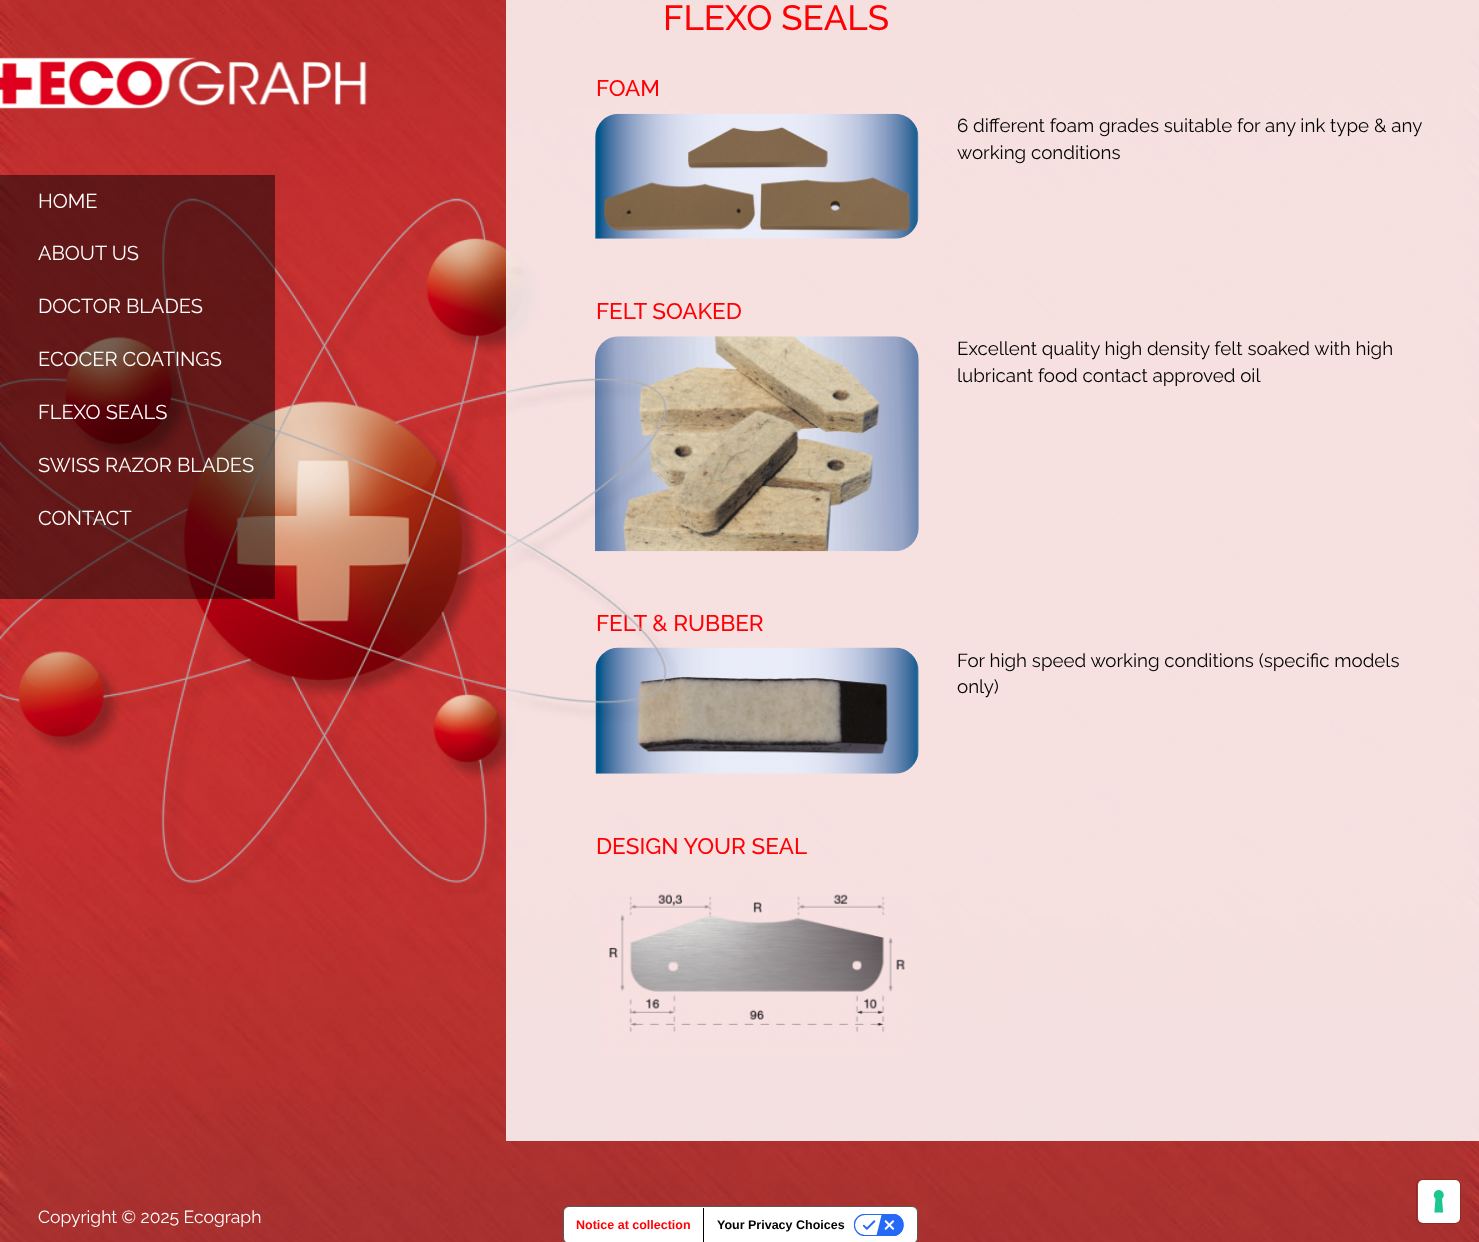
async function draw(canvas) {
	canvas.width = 1479;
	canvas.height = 1242;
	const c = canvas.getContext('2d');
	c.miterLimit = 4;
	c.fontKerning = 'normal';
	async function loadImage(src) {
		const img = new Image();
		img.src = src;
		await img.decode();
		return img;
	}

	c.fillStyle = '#fff';
	c.fillRect(0, 0, 1479, 1242);
	c.drawImage(await loadImage('img1.png'), 0, 0, 1479, 1242);
	c.drawImage(await loadImage('img2.png'), 0, 57, 367, 52);
	c.drawImage(await loadImage('img7.png'), 0, 198, 662, 697);
	c.fillStyle = '#ffffffd9';
	c.fillRect(506, 0, 973, 1141);
	c.font = '500 35px Raleway';
	c.fillStyle = '#ff0004';
	c.fillText('FLEXO SEALS', 663, 30);
	c.font = '500 22.5px Raleway';
	c.fillText('FOAM', 596, 96);
	c.drawImage(await loadImage('img3.png'), 595, 113, 324, 126);
	c.font = '18.75px Raleway';
	c.fillStyle = '#000';
	c.fillText('6 different foam grades suitable for any ink type & any', 957, 132);
	c.fillText('working conditions', 957, 159);
	c.font = '500 22.5px Raleway';
	c.fillStyle = '#ff0004';
	c.fillText('FELT SOAKED', 596, 319);
	c.drawImage(await loadImage('img4.png'), 595, 336, 324, 216);
	c.font = '18.75px Raleway';
	c.fillStyle = '#000';
	c.fillText('Excellent quality high density felt soaked with high', 957, 355);
	c.fillText('lubricant food contact approved oil', 957, 382);
	c.font = '500 22.5px Raleway';
	c.fillStyle = '#ff0004';
	c.fillText('FELT & RUBBER', 596, 631);
	c.drawImage(await loadImage('img5.png'), 595, 647, 324, 127);
	c.font = '18.75px Raleway';
	c.fillStyle = '#000';
	c.fillText('For high speed working conditions (specific models', 957, 667);
	c.fillText('only)', 957, 693);
	c.font = '500 22.5px Raleway';
	c.fillStyle = '#ff0004';
	c.fillText('DESIGN YOUR SEAL', 596, 854);
	c.drawImage(await loadImage('img6.png'), 599, 894, 314, 162);
	c.fillStyle = '#00000080';
	c.fillRect(0, 175, 275, 424);
	c.font = '20px Raleway';
	c.fillStyle = '#fff';
	for (const [text, x, y] of [
		['HOME', 38, 208],
		['ABOUT US', 38, 260],
		['DOCTOR BLADES', 38, 313],
		['ECOCER COATINGS', 38, 366],
		['FLEXO SEALS', 38, 419],
		['SWISS RAZOR BLADES', 38, 472],
		['CONTACT', 38, 525],
	]) {
		c.fillText(text, x, y);
	}
	c.font = '17.5px Raleway';
	c.fillText('Copyright © 2025 Ecograph', 38, 1223);
	c.drawImage(await loadImage('img8.png'), 466, 267, 212, 557);
	c.beginPath();
	c.roundRect(1416.5, 1179.5, 44, 44, 5.5);
	c.strokeStyle = '#00000026';
	c.stroke();
	c.beginPath();
	c.roundRect(1418, 1180, 42, 43, 5);
	c.fill();
	c.drawImage(await loadImage('img9.png'), 1433, 1190, 11, 23);
	c.beginPath();
	c.roundRect(563.5, 1206.5, 354, 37, 5.5);
	c.fill();
	c.strokeStyle = '#595959';
	c.stroke();
	c.font = 'bold 12.5px Liberation Sans';
	c.fillStyle = '#ff0004';
	c.fillText('Notice at collection', 576, 1229);
	c.fillStyle = '#000';
	c.fillRect(703, 1208, 1, 34);
	c.fillText('Your Privacy Choices', 717, 1229);
	c.drawImage(await loadImage('img10.png'), 854, 1214, 50, 22);
}

draw(document.querySelector('canvas'));
